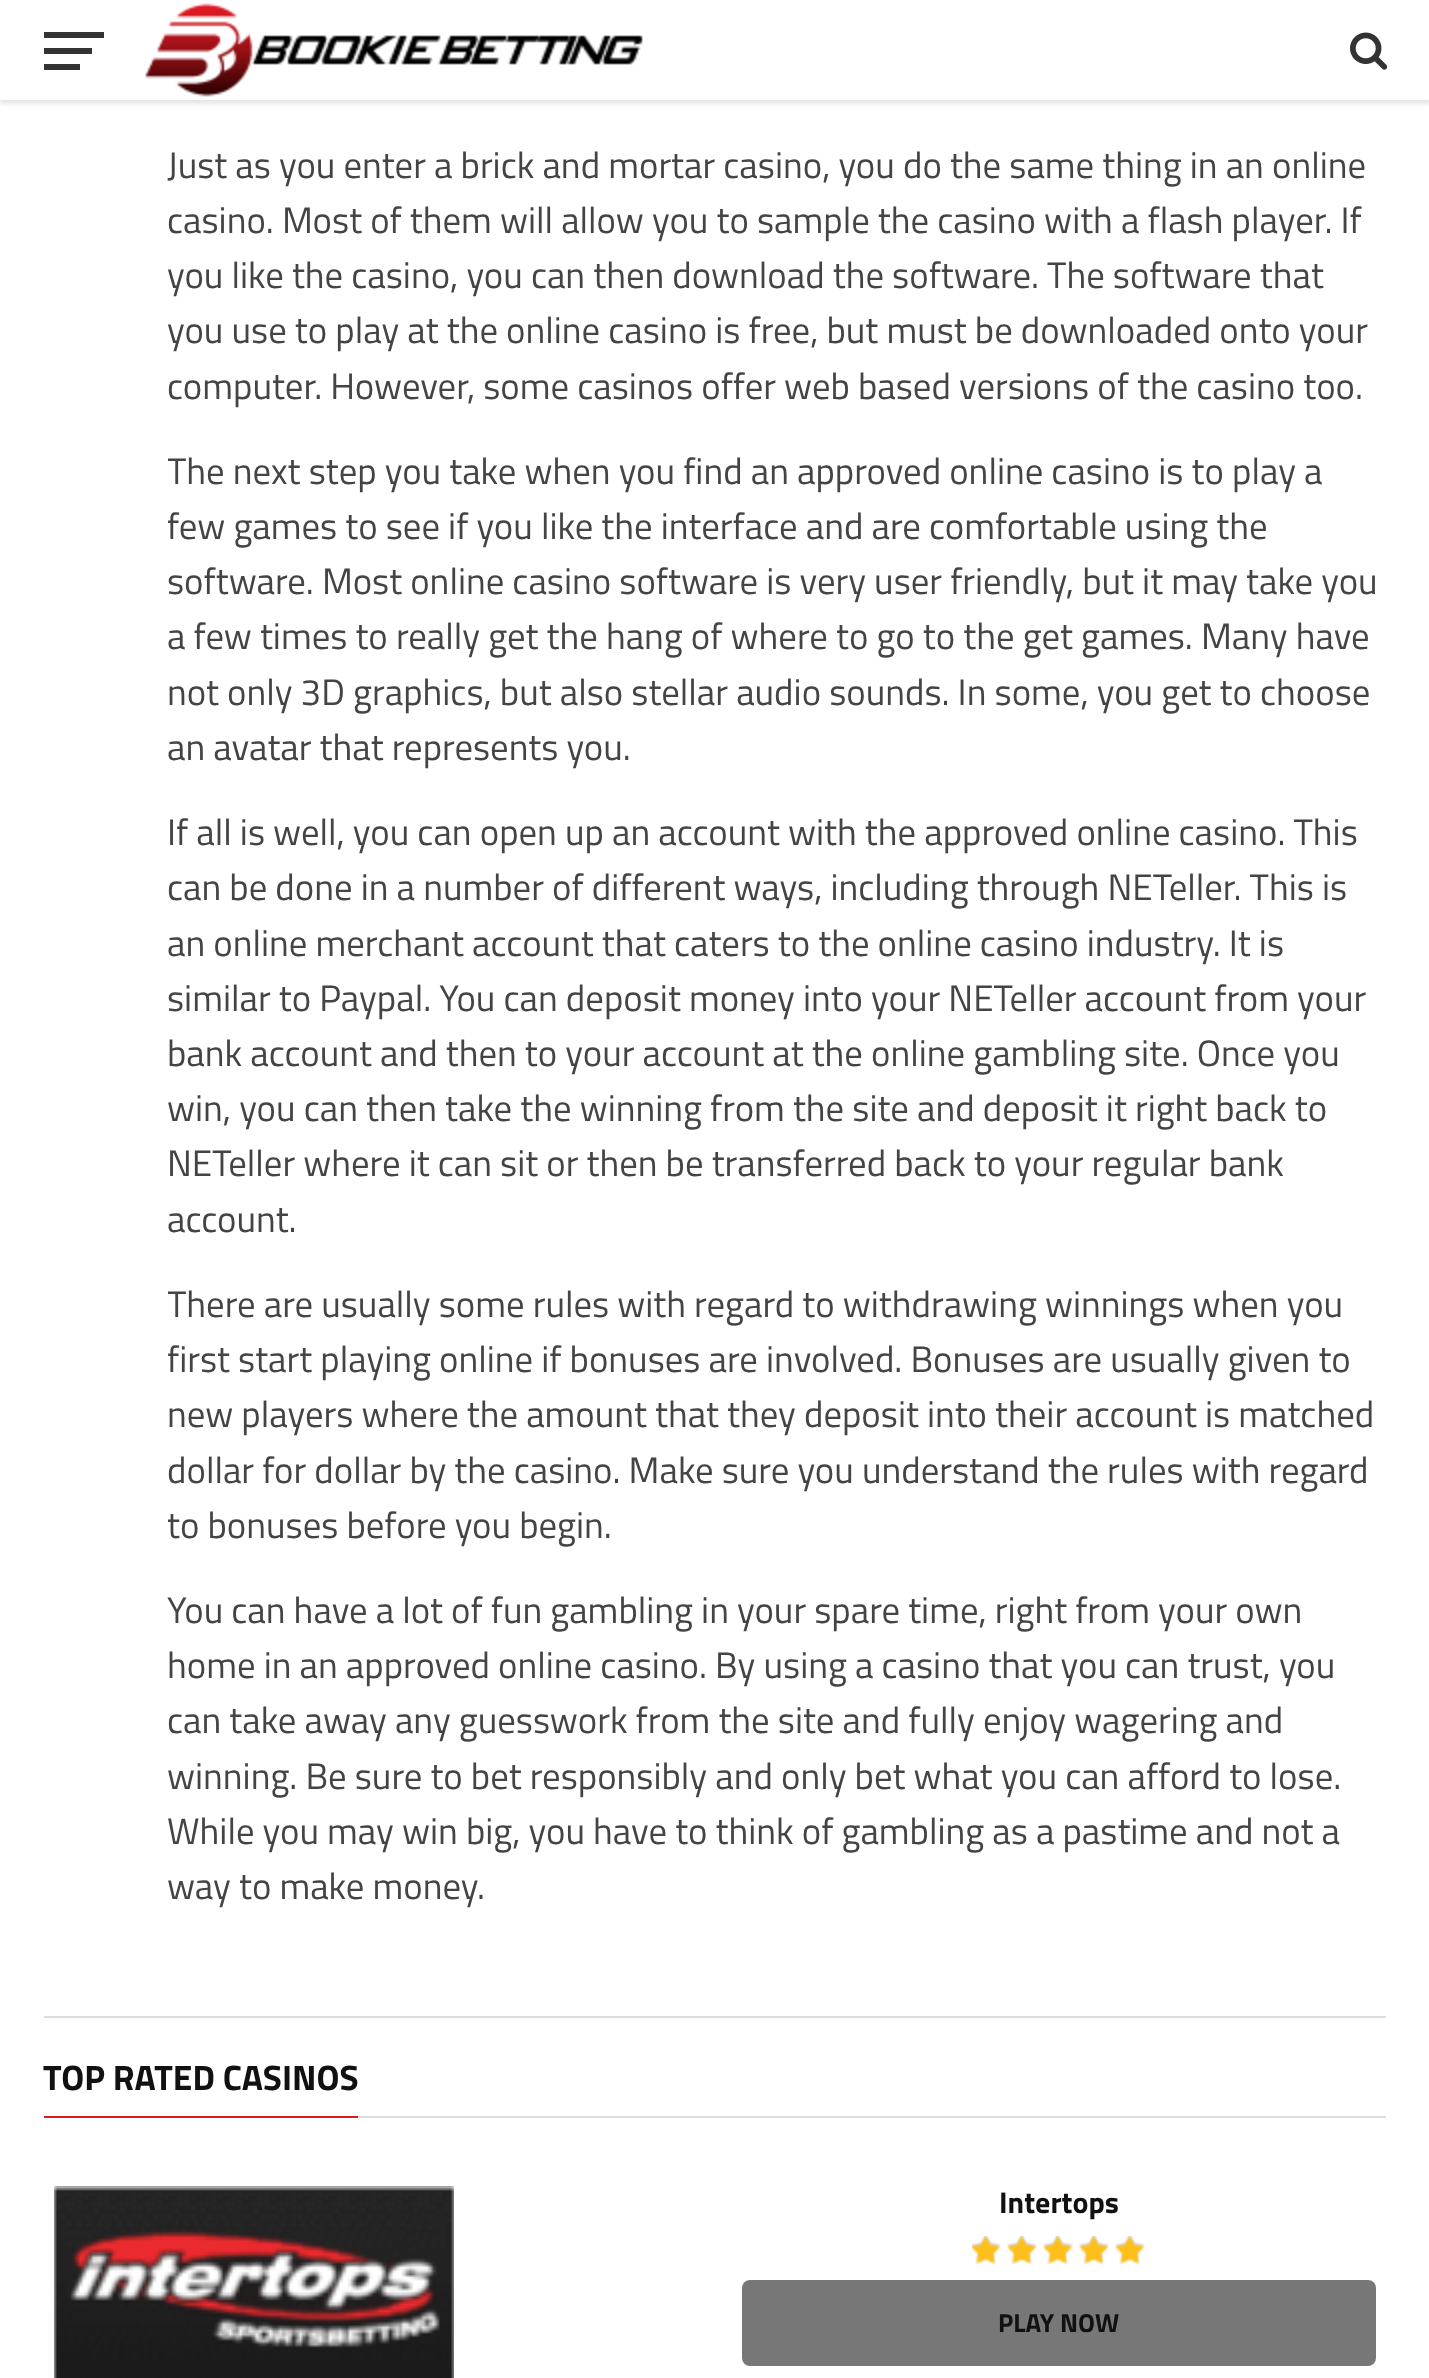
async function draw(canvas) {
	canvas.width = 1429;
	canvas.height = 2378;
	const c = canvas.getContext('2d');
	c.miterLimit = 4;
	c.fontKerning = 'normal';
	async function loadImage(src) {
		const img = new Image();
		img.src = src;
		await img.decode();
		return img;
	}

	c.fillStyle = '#fff';
	c.fillRect(0, 0, 1429, 2378);
	c.fillStyle = '#0000001a';
	c.filter = 'blur(2px)';
	c.beginPath();
	c.rect(0, 4, 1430, 100);
	c.fill();
	c.filter = 'none';
	for (const [x, y, w, h, color] of [
		[0, 1, 1429, 99, '#fff'],
		[44, 32, 60, 6, '#333'],
		[44, 48, 48, 6, '#333'],
		[44, 64, 36, 6, '#333'],
	]) {
		c.fillStyle = color;
		c.fillRect(x, y, w, h);
	}
	c.drawImage(await loadImage('img1.png'), 145, 3, 498, 94);
	c.drawImage(await loadImage('img2.png'), 1350, 32, 38, 38);
	c.font = '36.8px Titillium Web';
	c.fillStyle = '#444';
	for (const [text, x, y] of [
		['Just as you enter a brick and mortar casino, you do the same thing in an online', 167, 178],
		['casino. Most of them will allow you to sample the casino with a flash player. If', 167, 233],
		['you like the casino, you can then download the software. The software that', 167, 288],
		['you use to play at the online casino is free, but must be downloaded onto your', 167, 343],
		['computer. However, some casinos offer web based versions of the casino too.', 167, 399],
	]) {
		c.fillText(text, x, y);
	}
	c.save();
	c.beginPath();
	c.rect(168, 0, 1218, 1944);
	c.clip();
	c.fillText('The next step you take when you find an approved online casino is to play a', 167, 484);
	c.restore();
	for (const [text, x, y] of [
		['few games to see if you like the interface and are comfortable using the', 167, 539],
		['software. Most online casino software is very user friendly, but it may take you', 167, 594],
		['a few times to really get the hang of where to go to the get games. Many have', 167, 649],
		['not only 3D graphics, but also stellar audio sounds. In some, you get to choose', 167, 705],
		['an avatar that represents you.', 167, 760],
		['If all is well, you can open up an account with the approved online casino. This', 167, 845],
		['can be done in a number of different ways, including through NETeller. This is', 167, 900],
		['an online merchant account that caters to the online casino industry. It is', 167, 956],
		['similar to Paypal. You can deposit money into your NETeller account from your', 167, 1011],
		['bank account and then to your account at the online gambling site. Once you', 167, 1066],
		['win, you can then take the winning from the site and deposit it right back to', 167, 1121],
		['NETeller where it can sit or then be transferred back to your regular bank', 167, 1176],
		['account.', 167, 1232],
	]) {
		c.fillText(text, x, y);
	}
	c.save();
	c.beginPath();
	c.rect(168, 0, 1218, 1944);
	c.clip();
	c.fillText('There are usually some rules with regard to withdrawing winnings when you', 167, 1317);
	c.restore();
	for (const [text, x, y] of [
		['first start playing online if bonuses are involved. Bonuses are usually given to', 167, 1372],
		['new players where the amount that they deposit into their account is matched', 167, 1427],
		['dollar for dollar by the casino. Make sure you understand the rules with regard', 167, 1483],
		['to bonuses before you begin.', 167, 1538],
		['You can have a lot of fun gambling in your spare time, right from your own', 167, 1623],
		['home in an approved online casino. By using a casino that you can trust, you', 167, 1678],
		['can take away any guesswork from the site and fully enjoy wagering and', 167, 1733],
		['winning. Be sure to bet responsibly and only bet what you can afford to lose.', 167, 1789],
		['While you may win big, you have to think of gambling as a pastime and not a', 167, 1844],
		['way to make money.', 167, 1899],
	]) {
		c.fillText(text, x, y);
	}
	for (const [x, y, w, h, color] of [
		[44, 2016, 1342, 2, '#ddd'],
		[358, 2116, 1028, 2, '#ddd'],
		[44, 2116, 314, 2, '#dc1a22'],
	]) {
		c.fillStyle = color;
		c.fillRect(x, y, w, h);
	}
	c.font = 'bold 35.25px Titillium Web';
	c.fillStyle = '#111';
	c.fillText('TOP RATED CASINOS', 43, 2090);
	c.drawImage(await loadImage('img3.png'), 54, 2186, 400, 192);
	c.font = 'bold 30px Titillium Web';
	c.fillText('Intertops', 999, 2213);
	c.drawImage(await loadImage('img4.png'), 972, 2236, 173, 27);
	c.drawImage(await loadImage('img5.png'), 972, 2236, 173, 28);
	c.fillStyle = '#777';
	c.beginPath();
	c.roundRect(742, 2280, 634, 86, 8);
	c.fill();
	c.font = 'bold 26px Titillium Web';
	c.fillStyle = '#111';
	c.fillText('PLAY NOW', 998, 2332);
}

draw(document.querySelector('canvas'));
